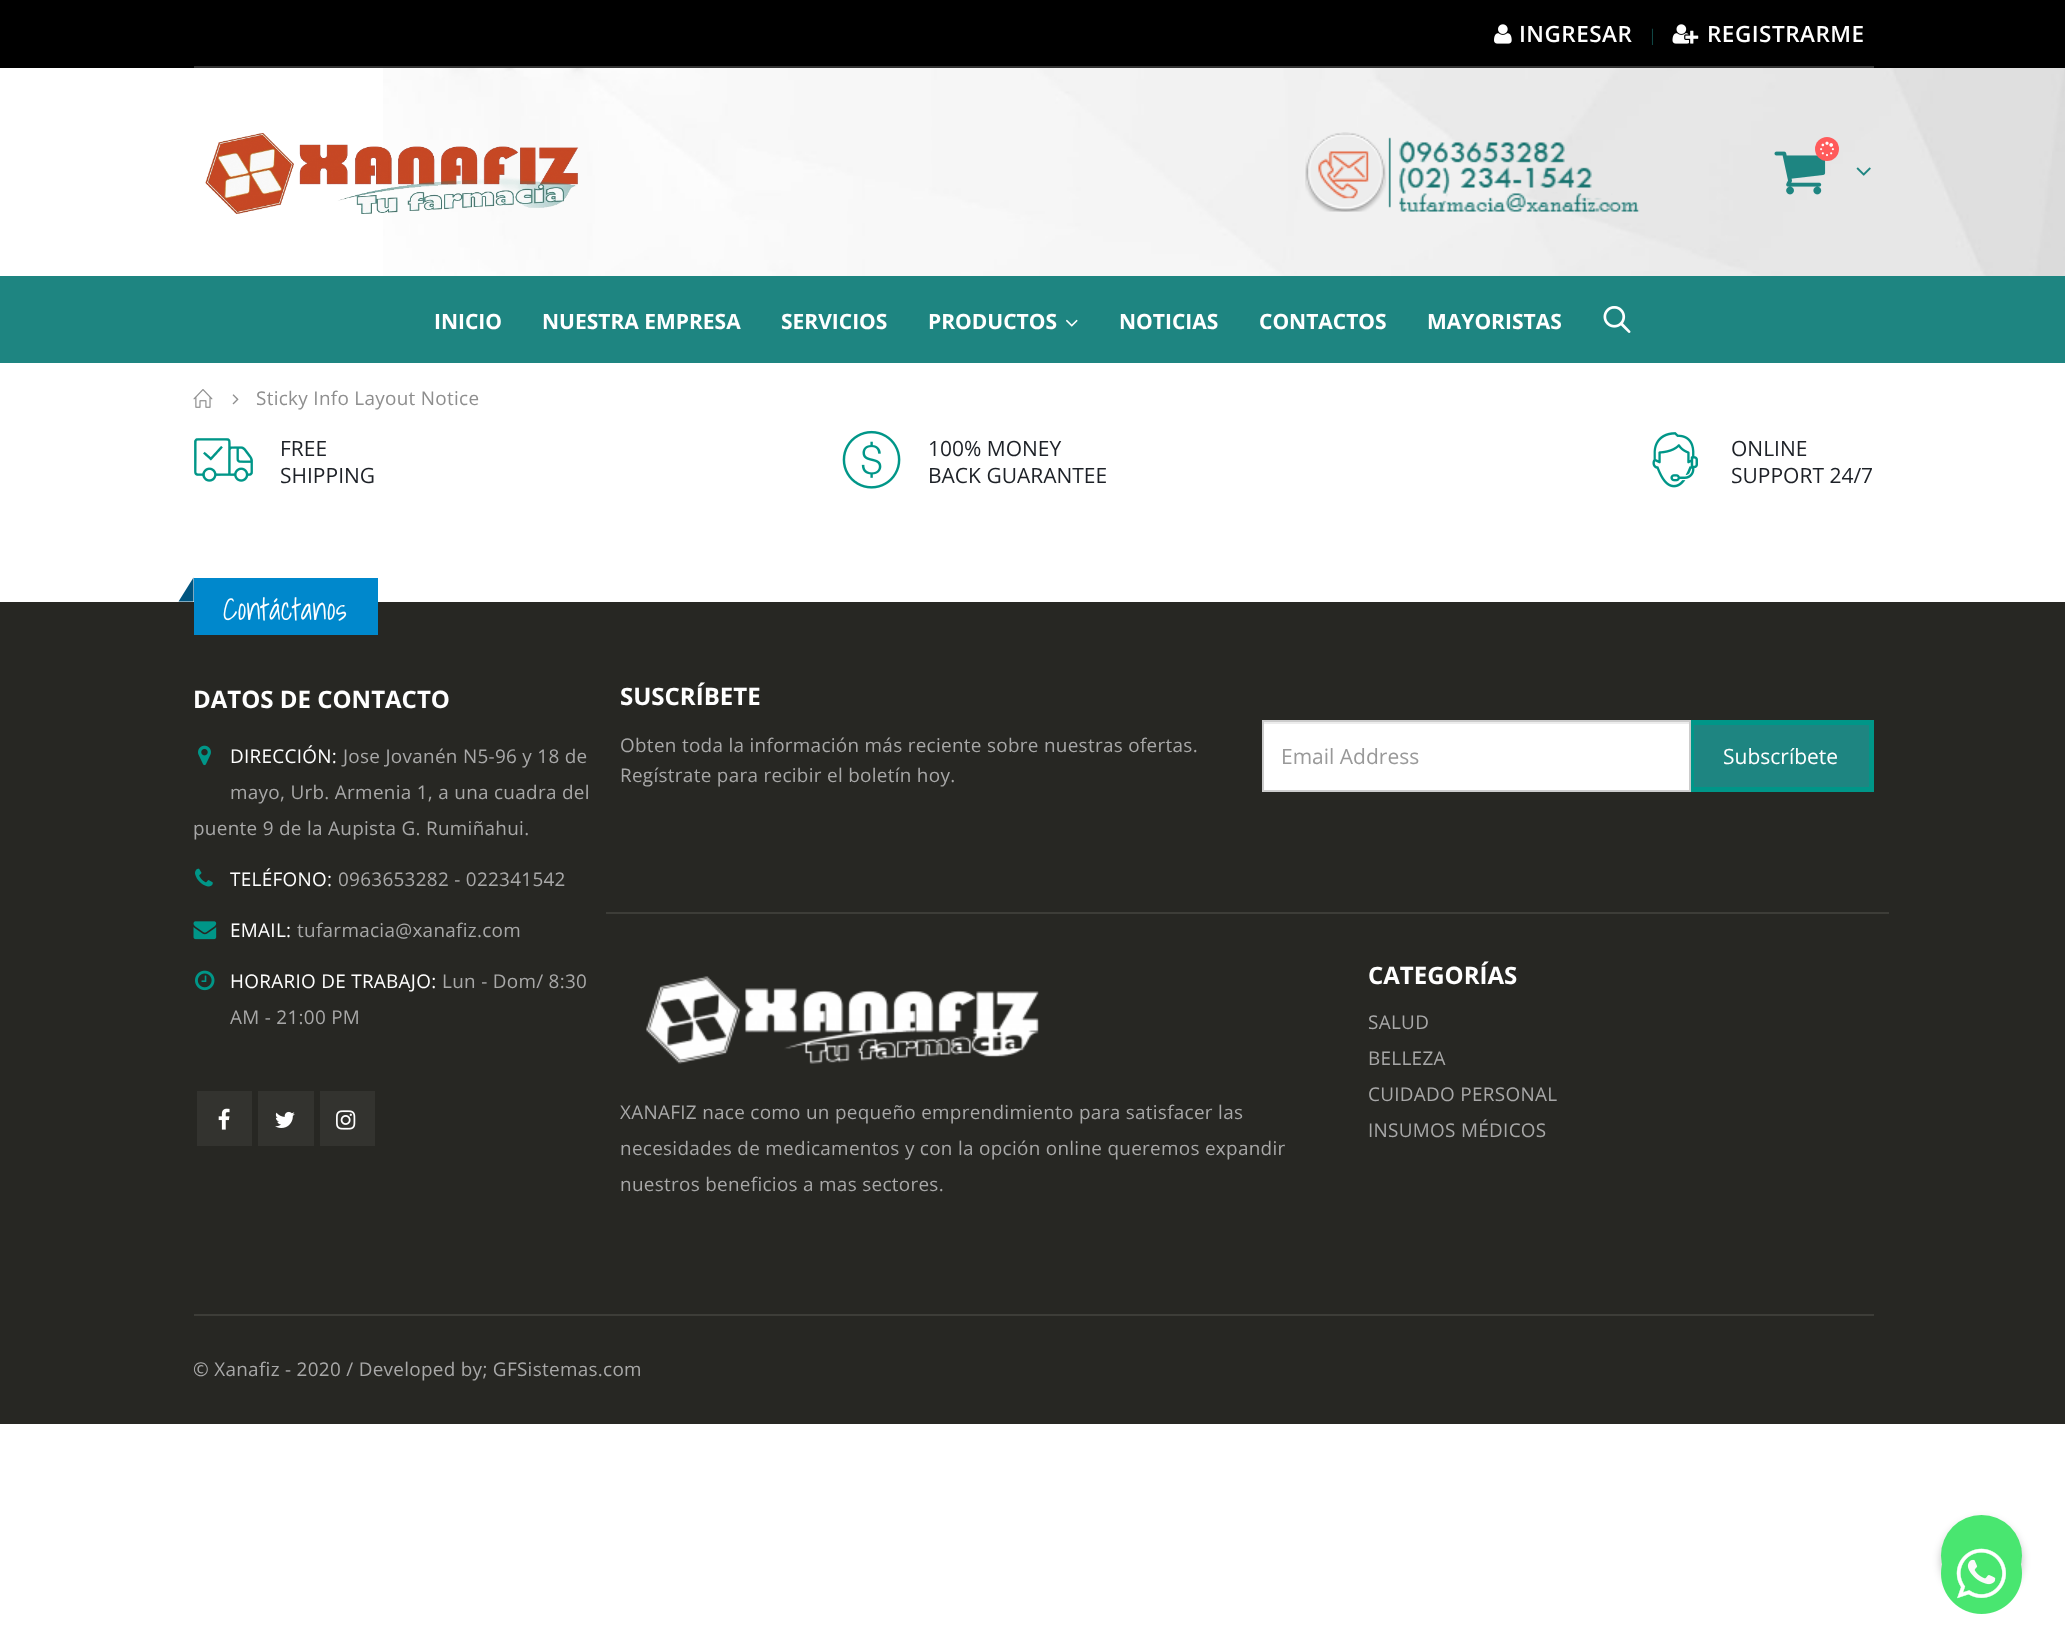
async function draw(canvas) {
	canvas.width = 2065;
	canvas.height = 1633;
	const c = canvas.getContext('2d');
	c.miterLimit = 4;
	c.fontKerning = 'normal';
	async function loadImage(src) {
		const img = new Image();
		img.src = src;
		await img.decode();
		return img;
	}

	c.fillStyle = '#fff';
	c.fillRect(0, 0, 2065, 1633);
	c.fillStyle = '#000';
	c.fillRect(0, 0, 2065, 68);
	c.drawImage(await loadImage('img1.png'), 1494, 24, 18, 20);
	c.letterSpacing = '0.5px';
	c.font = '600 22.5px Open Sans';
	c.fillStyle = '#fff';
	c.fillText('INGRESAR', 1519, 42);
	c.letterSpacing = '0.3px';
	c.font = '300 16px Open Sans';
	c.fillStyle = '#186a67';
	c.fillText('|', 1648, 41);
	c.drawImage(await loadImage('img2.png'), 1672, 24, 27, 20);
	c.letterSpacing = '0.5px';
	c.font = '600 22.5px Open Sans';
	c.fillStyle = '#fff';
	c.fillText('REGISTRARME', 1707, 42);
	c.fillStyle = '#323232';
	c.fillRect(194, 66, 1680, 2);
	c.drawImage(await loadImage('img3.png'), 383, 68, 1682, 208);
	c.drawImage(await loadImage('img4.png'), 205, 133, 374, 81);
	c.drawImage(await loadImage('img5.png'), 1305, 132, 335, 80);
	c.drawImage(await loadImage('img6.png'), 1774, 151, 52, 44);
	c.fillStyle = '#ff5b5b';
	c.beginPath();
	c.arc(1827, 149, 12, 0, 2 * Math.PI);
	c.fill();
	c.drawImage(await loadImage('img7.png'), 1820, 141, 14, 16);
	c.drawImage(await loadImage('img8.png'), 1856, 167, 15, 9);
	c.fillStyle = '#1e8581';
	c.fillRect(0, 276, 2065, 87);
	c.letterSpacing = '0px';
	c.font = 'bold 21px Open Sans';
	c.fillStyle = '#fff';
	for (const [text, x, y] of [
		['INICIO', 434, 329],
		['NUESTRA EMPRESA', 542, 329],
		['SERVICIOS', 781, 329],
		['PRODUCTOS', 928, 329],
	]) {
		c.fillText(text, x, y);
	}
	c.drawImage(await loadImage('img9.png'), 1066, 319, 12, 8);
	for (const [text, x, y] of [
		['NOTICIAS', 1119, 329],
		['CONTACTOS', 1259, 329],
		['MAYORISTAS', 1427, 329],
	]) {
		c.fillText(text, x, y);
	}
	c.drawImage(await loadImage('img10.png'), 1603, 306, 28, 27);
	c.drawImage(await loadImage('img11.png'), 193, 389, 20, 19);
	c.drawImage(await loadImage('img12.png'), 232, 394, 7, 11);
	c.letterSpacing = '0.3px';
	c.font = '18.9px Open Sans';
	c.fillStyle = '#8e8e8e';
	c.fillText('Sticky Info Layout Notice', 256, 405);
	c.drawImage(await loadImage('img13.png'), 194, 438, 59, 44);
	c.letterSpacing = '0px';
	c.font = '21px Open Sans';
	c.fillStyle = '#1d2127';
	c.fillText('FREE', 280, 456);
	c.fillText('SHIPPING', 280, 483);
	c.drawImage(await loadImage('img14.png'), 842, 430, 59, 59);
	c.fillText('100% MONEY', 928, 456);
	c.fillText('BACK GUARANTEE', 928, 483);
	c.drawImage(await loadImage('img15.png'), 1652, 432, 46, 56);
	c.fillText('ONLINE', 1731, 456);
	c.fillText('SUPPORT 24/7', 1731, 483);
	c.fillStyle = '#272723';
	c.fillRect(0, 602, 2065, 822);
	c.fillStyle = '#08c';
	c.fillRect(194, 578, 184, 57);
	c.fillStyle = '#005580';
	c.beginPath();
	c.moveTo(193.5, 577.5);
	c.lineTo(193.5, 601.5);
	c.lineTo(178.5, 601.5);
	c.closePath();
	c.fill();
	c.letterSpacing = '0.3px';
	c.font = '30px Shadows Into Light';
	c.fillStyle = '#fff';
	c.fillText('Contáctanos', 223, 620);
	c.letterSpacing = '0px';
	c.font = 'bold 24px Open Sans';
	c.fillText('DATOS DE CONTACTO', 193, 708);
	c.drawImage(await loadImage('img16.png'), 198, 745, 13, 21);
	c.letterSpacing = '0.3px';
	c.font = '18.9px Open Sans';
	c.fillText('DIRECCIÓN:', 230, 763);
	c.fillStyle = '#a8a8a8';
	for (const [text, x, y] of [
		['Jose Jovanén N5-96 y 18 de', 343, 763],
		['mayo, Urb. Armenia 1, a una cuadra del', 230, 799],
		['puente 9 de la Aupista G. Rumiñahui.', 193, 835],
	]) {
		c.fillText(text, x, y);
	}
	c.drawImage(await loadImage('img17.png'), 195, 868, 18, 19);
	c.fillStyle = '#fff';
	c.fillText('TELÉFONO:', 230, 886);
	c.fillStyle = '#a8a8a8';
	c.fillText('0963653282 - 022341542', 338, 886);
	c.drawImage(await loadImage('img18.png'), 193, 921, 24, 19);
	c.fillStyle = '#fff';
	c.fillText('EMAIL:', 230, 937);
	c.fillStyle = '#a8a8a8';
	c.fillText('tufarmacia@xanafiz.com', 297, 937);
	c.drawImage(await loadImage('img19.png'), 195, 970, 20, 21);
	c.fillStyle = '#fff';
	c.fillText('HORARIO DE TRABAJO:', 230, 988);
	c.fillStyle = '#a8a8a8';
	c.fillText('Lun - Dom/ 8:30', 442, 988);
	c.fillText('AM - 21:00 PM', 230, 1024);
	c.fillStyle = '#33332f';
	c.fillRect(197, 1091, 55, 55);
	c.drawImage(await loadImage('img20.png'), 218, 1108, 12, 22);
	c.fillRect(258, 1091, 56, 55);
	c.drawImage(await loadImage('img21.png'), 275, 1111, 20, 17);
	c.fillRect(320, 1091, 55, 55);
	c.drawImage(await loadImage('img22.png'), 336, 1110, 20, 20);
	c.letterSpacing = '0px';
	c.font = 'bold 24px Open Sans';
	c.fillStyle = '#fff';
	c.fillText('SUSCRÍBETE', 620, 705);
	c.letterSpacing = '0.3px';
	c.font = '18.9px Open Sans';
	c.fillStyle = '#a8a8a8';
	c.fillText('Obten toda la información más reciente sobre nuestras ofertas.', 620, 752);
	c.fillText('Regístrate para recibir el boletín hoy.', 620, 782);
	c.fillStyle = '#fff';
	c.fillRect(1264, 724, 425, 66);
	c.fillStyle = '#ececec';
	c.fillRect(1263, 722, 426, 2);
	c.fillStyle = '#1e8581';
	c.beginPath();
	c.rect(1691.5, 722.5, 180, 67);
	c.fill();
	c.strokeStyle = '#009688';
	c.lineWidth = 5;
	c.stroke();
	c.strokeStyle = '#ccc';
	c.lineWidth = 2;
	c.strokeRect(1263, 721, 427, 70);
	c.letterSpacing = '0px';
	c.font = '21px Open Sans';
	c.fillStyle = '#999';
	c.fillText('Email Address', 1281, 764);
	c.fillStyle = '#fff';
	c.fillText('Subscríbete', 1723, 764);
	c.fillStyle = '#3d3d38';
	c.fillRect(606, 912, 1283, 2);
	c.font = 'bold 24px Open Sans';
	c.fillStyle = '#fff';
	c.fillText('CATEGORÍAS', 1368, 984);
	c.letterSpacing = '0.3px';
	c.font = '18.9px Open Sans';
	c.fillStyle = '#a8a8a8';
	for (const [text, x, y] of [
		['SALUD', 1368, 1029],
		['BELLEZA', 1368, 1065],
		['CUIDADO PERSONAL', 1368, 1101],
		['INSUMOS MÉDICOS', 1368, 1137],
	]) {
		c.fillText(text, x, y);
	}
	c.drawImage(await loadImage('img23.png'), 646, 976, 393, 88);
	for (const [text, x, y] of [
		['XANAFIZ nace como un pequeño emprendimiento para satisfacer las', 620, 1119],
		['necesidades de medicamentos y con la opción online queremos expandir', 620, 1155],
		['nuestros beneficios a mas sectores.', 620, 1191],
	]) {
		c.fillText(text, x, y);
	}
	c.fillStyle = '#3d3d38';
	c.fillRect(194, 1314, 1680, 2);
	c.fillStyle = '#a8a8a8';
	c.fillText('© Xanafiz - 2020 / Developed by; GFSistemas.com', 193, 1376);
	c.fillStyle = '#00000040';
	c.filter = 'blur(4.5px)';
	c.beginPath();
	c.roundRect(1941, 1520, 81, 81, 40.5);
	c.fill();
	c.filter = 'none';
	c.fillStyle = '#49e670';
	c.beginPath();
	c.arc(1981.5, 1555.5, 40.5, 0, 2 * Math.PI);
	c.fill();
	c.drawImage(await loadImage('img24.png'), 1941, 1548, 81, 66);
}

draw(document.querySelector('canvas'));
